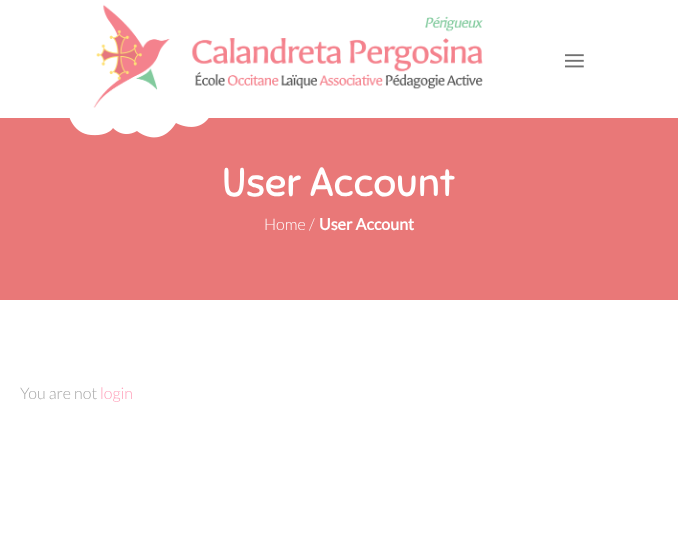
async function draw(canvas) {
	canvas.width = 678;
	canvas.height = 557;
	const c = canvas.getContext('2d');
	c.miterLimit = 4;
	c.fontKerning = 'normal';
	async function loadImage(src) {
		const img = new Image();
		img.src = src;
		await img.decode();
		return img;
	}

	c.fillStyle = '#fff';
	c.fillRect(0, 0, 678, 557);
	c.fillStyle = '#e97878';
	c.fillRect(0, 118, 678, 182);
	c.drawImage(await loadImage('img1.png'), 69, 118, 140, 20);
	c.drawImage(await loadImage('img2.png'), 93, 4, 390, 104);
	c.drawImage(await loadImage('img3.png'), 565, 54, 19, 14);
	c.font = '40px Sniglet';
	c.fillStyle = '#fff';
	c.fillText('User Account', 222, 196);
	c.font = '300 16px Lato';
	c.fillText('Home', 264, 230);
	c.fillText('/', 309, 230);
	c.font = 'bold 16px Lato';
	c.fillText('User Account', 319, 230);
	c.font = '300 16px Lato';
	c.fillStyle = '#a5a5a5';
	c.fillText('You are not', 20, 399);
	c.fillStyle = '#ffa1ba';
	c.fillText('login', 100, 399);
}

draw(document.querySelector('canvas'));
